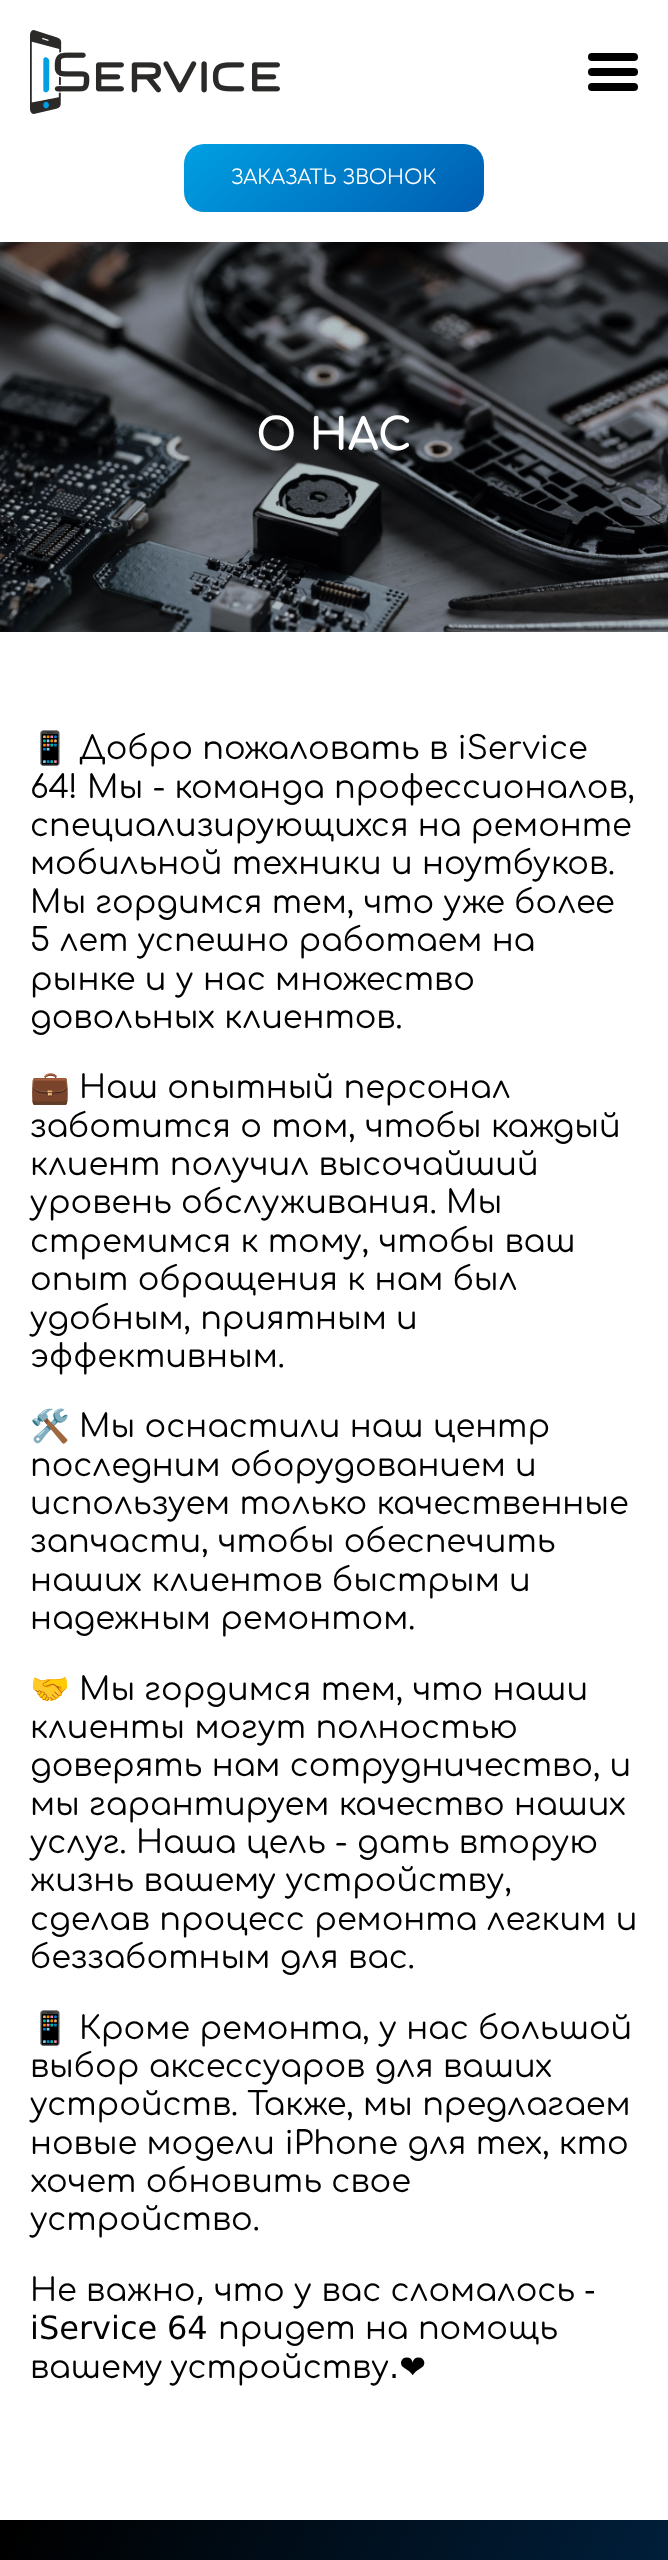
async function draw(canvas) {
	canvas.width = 668;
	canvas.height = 2560;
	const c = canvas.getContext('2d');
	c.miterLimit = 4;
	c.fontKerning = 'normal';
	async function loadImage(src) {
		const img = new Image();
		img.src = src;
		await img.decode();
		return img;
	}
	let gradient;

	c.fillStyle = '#fff';
	c.fillRect(0, 0, 668, 2560);
	c.drawImage(await loadImage('img1.png'), 30, 30, 250, 84);
	c.fillStyle = '#000';
	c.beginPath();
	c.roundRect(588, 53, 50, 8, 4);
	c.fill();
	c.beginPath();
	c.roundRect(588, 68, 50, 8, 4);
	c.fill();
	c.beginPath();
	c.roundRect(588, 83, 50, 8, 4);
	c.fill();
	gradient = c.createLinearGradient(253, 84, 415, 272);
	gradient.addColorStop(0, '#00a0e3');
	gradient.addColorStop(1, '#005cb0');
	c.fillStyle = gradient;
	c.beginPath();
	c.roundRect(184, 144, 300, 68, 20);
	c.fill();
	c.font = '20px Comfortaa';
	c.fillStyle = '#fff';
	c.fillText('ЗАКАЗАТЬ ЗВОНОК', 231, 184);
	c.drawImage(await loadImage('img2.png'), 0, 242, 668, 390);
	c.font = 'bold 44px Comfortaa';
	c.fillText('О НАС', 256, 450);
	c.font = '32px Noto Color Emoji';
	c.fillStyle = '#000';
	c.fillText('📱', 30, 759);
	c.font = '32px Comfortaa';
	for (const [text, x, y] of [
		['Добро пожаловать в iService', 79, 759],
		['64! Мы - команда профессионалов,', 30, 798],
		['специализирующихся на ремонте', 30, 836],
		['мобильной техники и ноутбуков.', 30, 874],
		['Мы гордимся тем, что уже более', 30, 913],
		['5 лет успешно работаем на', 30, 951],
		['рынке и у нас множество', 30, 990],
		['довольных клиентов.', 30, 1028],
	]) {
		c.fillText(text, x, y);
	}
	c.font = '32px Noto Color Emoji';
	c.fillText('💼', 30, 1098);
	c.font = '32px Comfortaa';
	for (const [text, x, y] of [
		['Наш опытный персонал', 79, 1098],
		['заботится о том, чтобы каждый', 30, 1137],
		['клиент получил высочайший', 30, 1175],
		['уровень обслуживания. Мы', 30, 1213],
		['стремимся к тому, чтобы ваш', 30, 1252],
		['опыт обращения к нам был', 30, 1290],
		['удобным, приятным и', 30, 1329],
		['эффективным.', 30, 1367],
	]) {
		c.fillText(text, x, y);
	}
	c.font = '32px Noto Color Emoji';
	c.fillText('🛠️', 30, 1437);
	c.font = '32px Comfortaa';
	for (const [text, x, y] of [
		['Мы оснастили наш центр', 79, 1437],
		['последним оборудованием и', 30, 1476],
		['используем только качественные', 30, 1514],
		['запчасти, чтобы обеспечить', 30, 1552],
		['наших клиентов быстрым и', 30, 1591],
		['надежным ремонтом.', 30, 1629],
	]) {
		c.fillText(text, x, y);
	}
	c.font = '32px Noto Color Emoji';
	c.fillText('🤝', 30, 1700);
	c.font = '32px Comfortaa';
	for (const [text, x, y] of [
		['Мы гордимся тем, что наши', 79, 1700],
		['клиенты могут полностью', 30, 1738],
		['доверять нам сотрудничество, и', 30, 1776],
		['мы гарантируем качество наших', 30, 1815],
		['услуг. Наша цель - дать вторую', 30, 1853],
		['жизнь вашему устройству,', 30, 1891],
		['сделав процесс ремонта легким и', 30, 1930],
		['беззаботным для вас.', 30, 1968],
	]) {
		c.fillText(text, x, y);
	}
	c.font = '32px Noto Color Emoji';
	c.fillText('📱', 30, 2039);
	c.font = '32px Comfortaa';
	for (const [text, x, y] of [
		['Кроме ремонта, у нас большой', 79, 2039],
		['выбор аксессуаров для ваших', 30, 2077],
		['устройств. Также, мы предлагаем', 30, 2115],
		['новые модели iPhone для тех, кто', 30, 2154],
		['хочет обновить свое', 30, 2192],
		['устройство.', 30, 2230],
		['Не важно', 30, 2301],
		['что у вас сломалось', 214, 2301],
	]) {
		c.fillText(text, x, y);
	}
	c.font = '32px DejaVu Sans';
	for (const [text, x, y] of [
		['-', 584, 2301],
		[',', 195, 2301],
		['iService', 30, 2339],
		['64', 167, 2339],
	]) {
		c.fillText(text, x, y);
	}
	c.font = '32px Comfortaa';
	c.fillText('придет на помощь', 218, 2339);
	c.wordSpacing = '-2px';
	c.fillText('вашему устройству', 30, 2378);
	c.wordSpacing = '0px';
	c.font = '32px DejaVu Sans';
	c.fillText('.❤', 389, 2378);
	gradient = c.createLinearGradient(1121, 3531, -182, 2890);
	gradient.addColorStop(0, '#005cb0');
	gradient.addColorStop(0.5, '#002445');
	gradient.addColorStop(0.99, '#000');
	c.fillStyle = gradient;
	c.fillRect(0, 2520, 668, 40);
}

draw(document.querySelector('canvas'));
